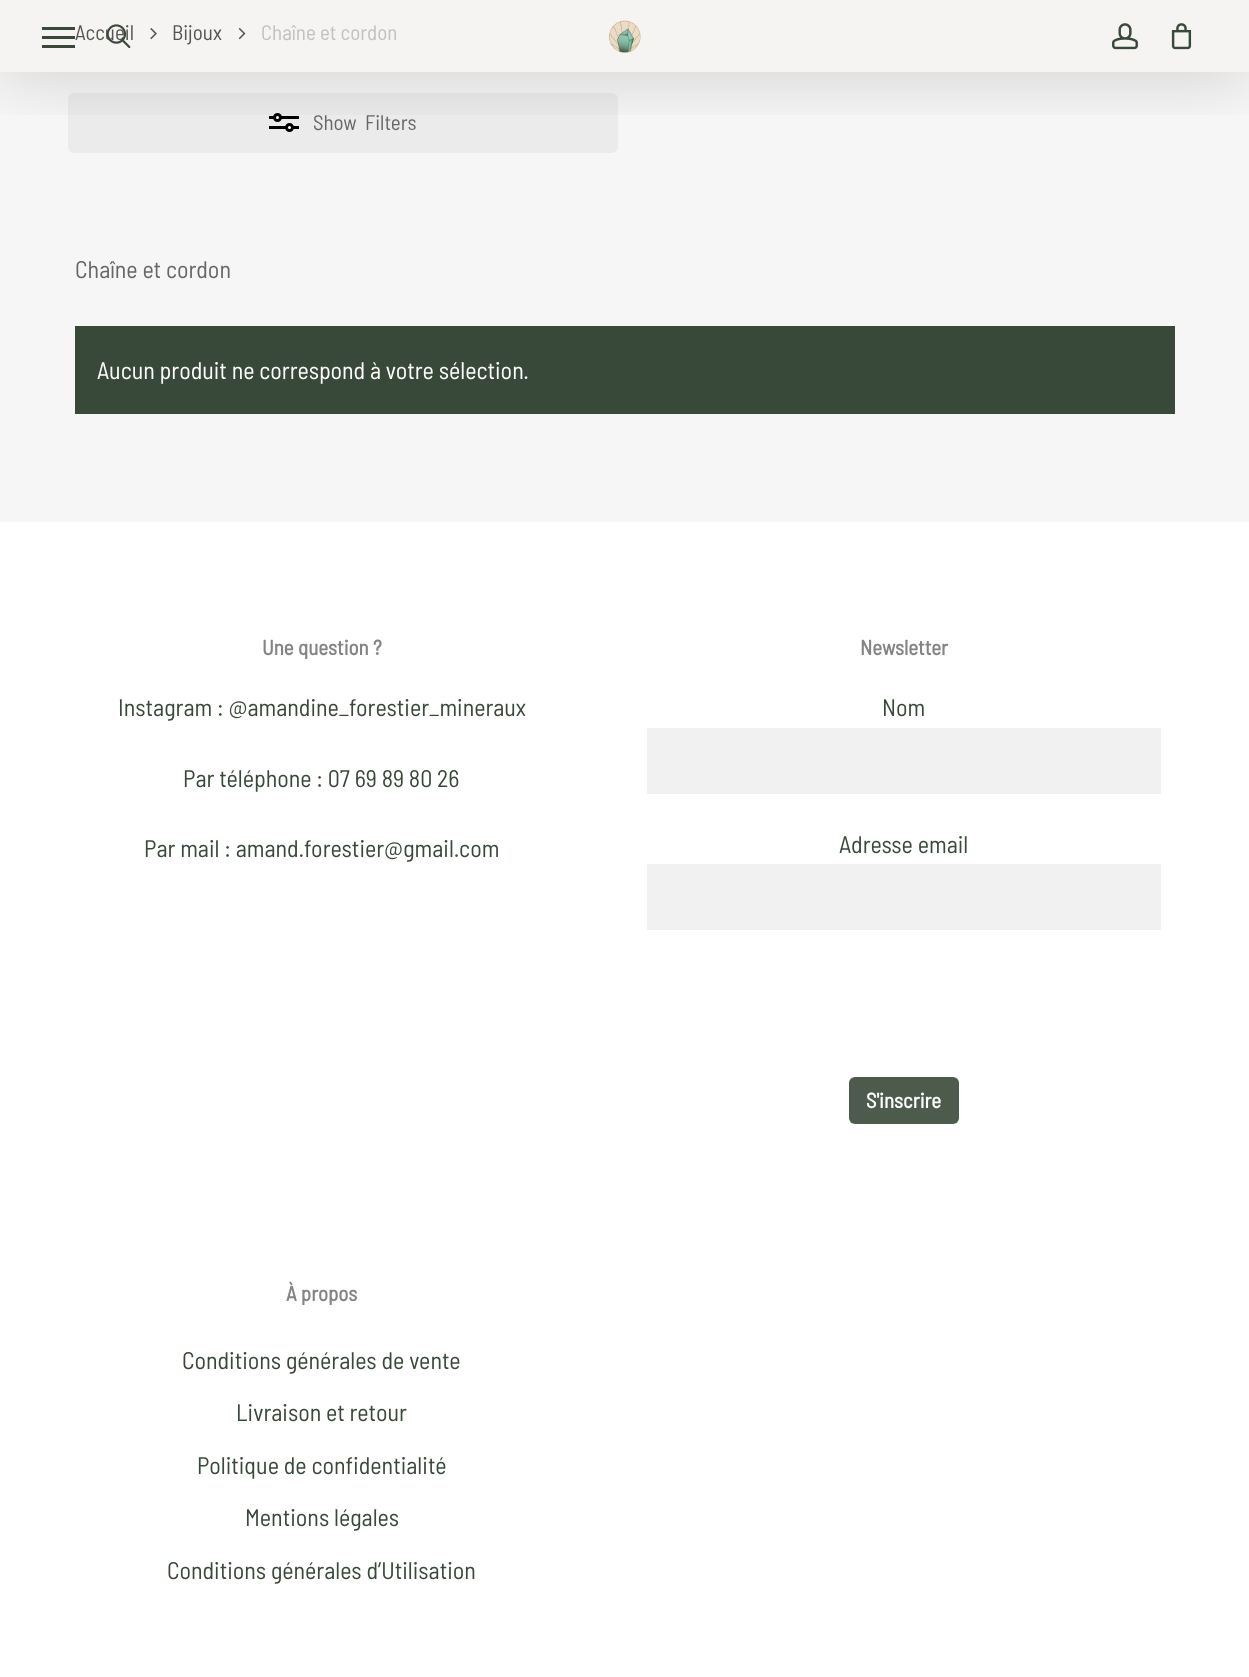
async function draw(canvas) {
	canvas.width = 1249;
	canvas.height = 1677;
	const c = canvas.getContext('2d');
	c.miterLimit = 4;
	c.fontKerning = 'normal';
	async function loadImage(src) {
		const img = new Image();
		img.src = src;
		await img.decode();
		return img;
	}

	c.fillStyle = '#fff';
	c.fillRect(0, 0, 1249, 1677);
	c.fillStyle = '#f6f6f6';
	c.fillRect(0, 72, 1249, 450);
	c.fillStyle = '#f6f4f2';
	c.fillRect(0, 0, 1249, 72);
	c.drawImage(await loadImage('img5.png'), 150, 28, 7, 12);
	c.drawImage(await loadImage('img6.png'), 238, 28, 8, 12);
	c.fillStyle = '#ebebeb';
	c.beginPath();
	c.roundRect(68, 93, 550, 60, 6);
	c.fill();
	c.fillStyle = '#000';
	c.fillRect(269, 116, 30, 3);
	c.fillRect(269, 126, 30, 3);
	c.fillStyle = '#fff';
	c.beginPath();
	c.arc(277.5, 117.5, 3, 0, 2 * Math.PI);
	c.fill();
	c.strokeStyle = '#000';
	c.lineWidth = 3;
	c.stroke();
	c.beginPath();
	c.arc(289.5, 127.5, 3, 0, 2 * Math.PI);
	c.fill();
	c.stroke();
	c.save();
	c.beginPath();
	c.rect(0, 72, 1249, 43);
	c.clip();
	c.fillStyle = '#00000026';
	c.filter = 'blur(34px)';
	c.beginPath();
	c.rect(0, 5, 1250, 72);
	c.fill();
	c.filter = 'none';
	c.restore();
	c.drawImage(await loadImage('img1.png'), 609, 20, 32, 33);
	for (const [x, y, w, h, color] of [
		[42, 27, 33, 3, '#394939'],
		[42, 45, 33, 3, '#394939'],
		[42, 36, 33, 3, '#394939'],
	]) {
		c.fillStyle = color;
		c.fillRect(x, y, w, h);
	}
	c.font = '21px Barlow Semi Condensed';
	c.fillStyle = '#565452';
	c.fillText('Accueil', 75, 40);
	c.drawImage(await loadImage('img2.png'), 106, 24, 25, 24);
	c.drawImage(await loadImage('img3.png'), 1112, 23, 26, 27);
	c.drawImage(await loadImage('img4.png'), 1171, 23, 21, 27);
	c.fillText('Bijoux', 172, 40);
	c.fillStyle = '#c3c1bf';
	c.fillText('Chaîne et cordon', 261, 40);
	c.fillStyle = '#676767';
	c.fillText('Show', 313, 130);
	c.fillText('Filters', 365, 130);
	c.font = '24px Barlow Semi Condensed';
	c.fillText('Chaîne et cordon', 75, 278);
	c.fillStyle = '#394939';
	c.fillRect(75, 326, 1100, 88);
	c.fillStyle = '#fff';
	c.fillText('Aucun produit ne correspond à votre sélection.', 97, 379);
	c.font = 'bold 21px Barlow Semi Condensed';
	c.fillStyle = '#848484';
	c.fillText('Une question ?', 262, 655);
	c.font = '24px Barlow Semi Condensed';
	c.fillStyle = '#394939';
	for (const [text, x, y] of [
		['Instagram : @amandine_forestier_mineraux', 118, 716],
		['Par téléphone : 07 69 89 80 26', 183, 787],
		['Par mail : amand.forestier@gmail.com', 144, 857],
	]) {
		c.fillText(text, x, y);
	}
	c.font = 'bold 21px Barlow Semi Condensed';
	c.fillStyle = '#848484';
	c.fillText('Newsletter', 860, 655);
	c.font = '24px Barlow Semi Condensed';
	c.fillStyle = '#394939';
	c.fillText('Nom', 882, 716);
	c.fillStyle = '#f1f1f1';
	c.fillRect(647, 728, 514, 66);
	c.fillStyle = '#394939';
	c.fillText('Adresse email', 839, 853);
	c.fillStyle = '#f1f1f1';
	c.fillRect(647, 864, 514, 66);
	c.fillStyle = '#4d5b4d';
	c.beginPath();
	c.roundRect(849, 1077, 110, 47, 6);
	c.fill();
	c.font = 'bold 21px Barlow Semi Condensed';
	c.fillStyle = '#fff';
	c.fillText('S\'inscrire', 866, 1108);
	c.fillStyle = '#848484';
	c.fillText('À propos', 286, 1301);
	c.font = '24px Barlow Semi Condensed';
	c.fillStyle = '#394939';
	for (const [text, x, y] of [
		['Conditions générales de vente', 182, 1369],
		['Livraison et retour', 236, 1421],
		['Politique de confidentialité', 197, 1474],
		['Mentions légales', 245, 1526],
		['Conditions générales d’Utilisation', 167, 1579],
	]) {
		c.fillText(text, x, y);
	}
}

draw(document.querySelector('canvas'));
